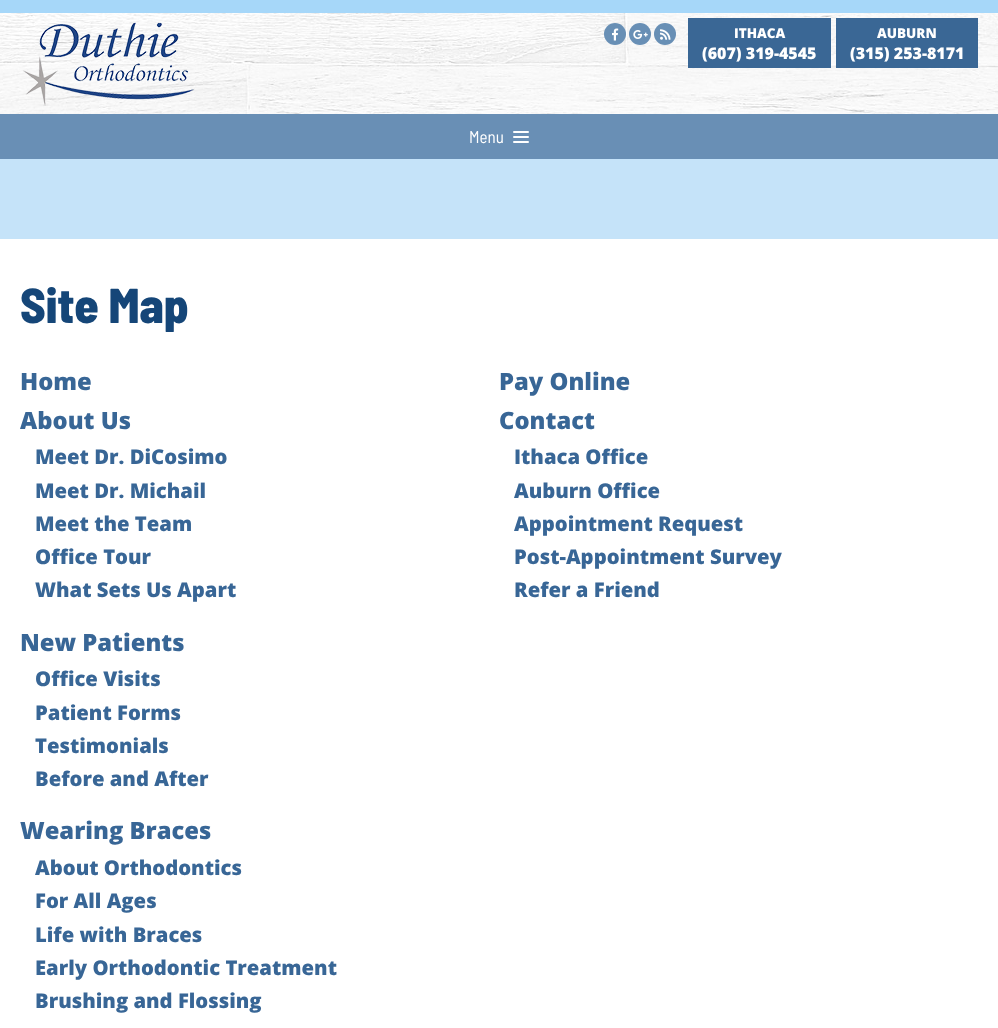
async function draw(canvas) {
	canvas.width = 998;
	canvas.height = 1028;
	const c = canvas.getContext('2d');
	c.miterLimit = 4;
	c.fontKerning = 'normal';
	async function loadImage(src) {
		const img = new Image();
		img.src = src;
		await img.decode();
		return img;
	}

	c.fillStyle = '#fff';
	c.fillRect(0, 0, 998, 1028);
	c.drawImage(await loadImage('img1.png'), 0, 0, 998, 114);
	c.drawImage(await loadImage('img2.png'), 23, 22, 172, 84);
	c.fillStyle = '#688fb5';
	c.beginPath();
	c.arc(615, 34, 11, 0, 2 * Math.PI);
	c.fill();
	c.drawImage(await loadImage('img3.png'), 612, 28, 7, 13);
	c.beginPath();
	c.arc(640, 34, 11, 0, 2 * Math.PI);
	c.fill();
	c.drawImage(await loadImage('img4.png'), 633, 30, 15, 9);
	c.beginPath();
	c.arc(665, 34, 11, 0, 2 * Math.PI);
	c.fill();
	c.drawImage(await loadImage('img5.png'), 660, 29, 11, 11);
	c.fillStyle = '#3a6795';
	c.fillRect(688, 18, 143, 50);
	c.font = '800 13.5px Open Sans';
	c.fillStyle = '#fff';
	c.fillText('ITHACA', 734, 38);
	c.font = '800 16px Open Sans';
	c.fillText('(607) 319-4545', 702, 59);
	c.fillStyle = '#3a6795';
	c.fillRect(836, 18, 142, 50);
	c.font = '800 13.5px Open Sans';
	c.fillStyle = '#fff';
	c.fillText('AUBURN', 877, 38);
	c.font = '800 16px Open Sans';
	c.fillText('(315) 253-8171', 850, 59);
	c.fillStyle = '#698fb5';
	c.fillRect(0, 114, 998, 45);
	c.font = '17px Barlow Semi Condensed';
	c.fillStyle = '#fff';
	c.fillText('Menu', 469, 143);
	c.beginPath();
	c.roundRect(513, 131, 16, 2, 1);
	c.fill();
	c.beginPath();
	c.roundRect(513, 136, 16, 2, 1);
	c.fill();
	c.beginPath();
	c.roundRect(513, 141, 16, 2, 1);
	c.fill();
	c.fillStyle = '#c5e3f9';
	c.fillRect(0, 159, 998, 80);
	c.font = '800 49px Barlow Semi Condensed';
	c.fillStyle = '#154678';
	c.fillText('Site Map', 20, 323);
	c.font = '800 23.75px Open Sans';
	c.fillStyle = '#386696';
	c.fillText('Home', 20, 390);
	c.fillText('About Us', 20, 429);
	c.font = '800 20.25px Open Sans';
	for (const [text, x, y] of [
		['Meet Dr. DiCosimo', 35, 464],
		['Meet Dr. Michail', 35, 498],
		['Meet the Team', 35, 531],
		['Office Tour', 35, 564],
		['What Sets Us Apart', 35, 597],
	]) {
		c.fillText(text, x, y);
	}
	c.font = '800 23.75px Open Sans';
	c.fillText('New Patients', 20, 651);
	c.font = '800 20.25px Open Sans';
	for (const [text, x, y] of [
		['Office Visits', 35, 686],
		['Patient Forms', 35, 720],
		['Testimonials', 35, 753],
		['Before and After', 35, 786],
	]) {
		c.fillText(text, x, y);
	}
	c.font = '800 23.75px Open Sans';
	c.fillText('Wearing Braces', 20, 839);
	c.font = '800 20.25px Open Sans';
	for (const [text, x, y] of [
		['About Orthodontics', 35, 875],
		['For All Ages', 35, 908],
		['Life with Braces', 35, 942],
		['Early Orthodontic Treatment', 35, 975],
		['Brushing and Flossing', 35, 1008],
	]) {
		c.fillText(text, x, y);
	}
	c.font = '800 23.75px Open Sans';
	c.fillText('Pay Online', 499, 390);
	c.fillText('Contact', 499, 429);
	c.font = '800 20.25px Open Sans';
	for (const [text, x, y] of [
		['Ithaca Office', 514, 464],
		['Auburn Office', 514, 498],
		['Appointment Request', 514, 531],
		['Post-Appointment Survey', 514, 564],
		['Refer a Friend', 514, 597],
	]) {
		c.fillText(text, x, y);
	}
}

draw(document.querySelector('canvas'));
